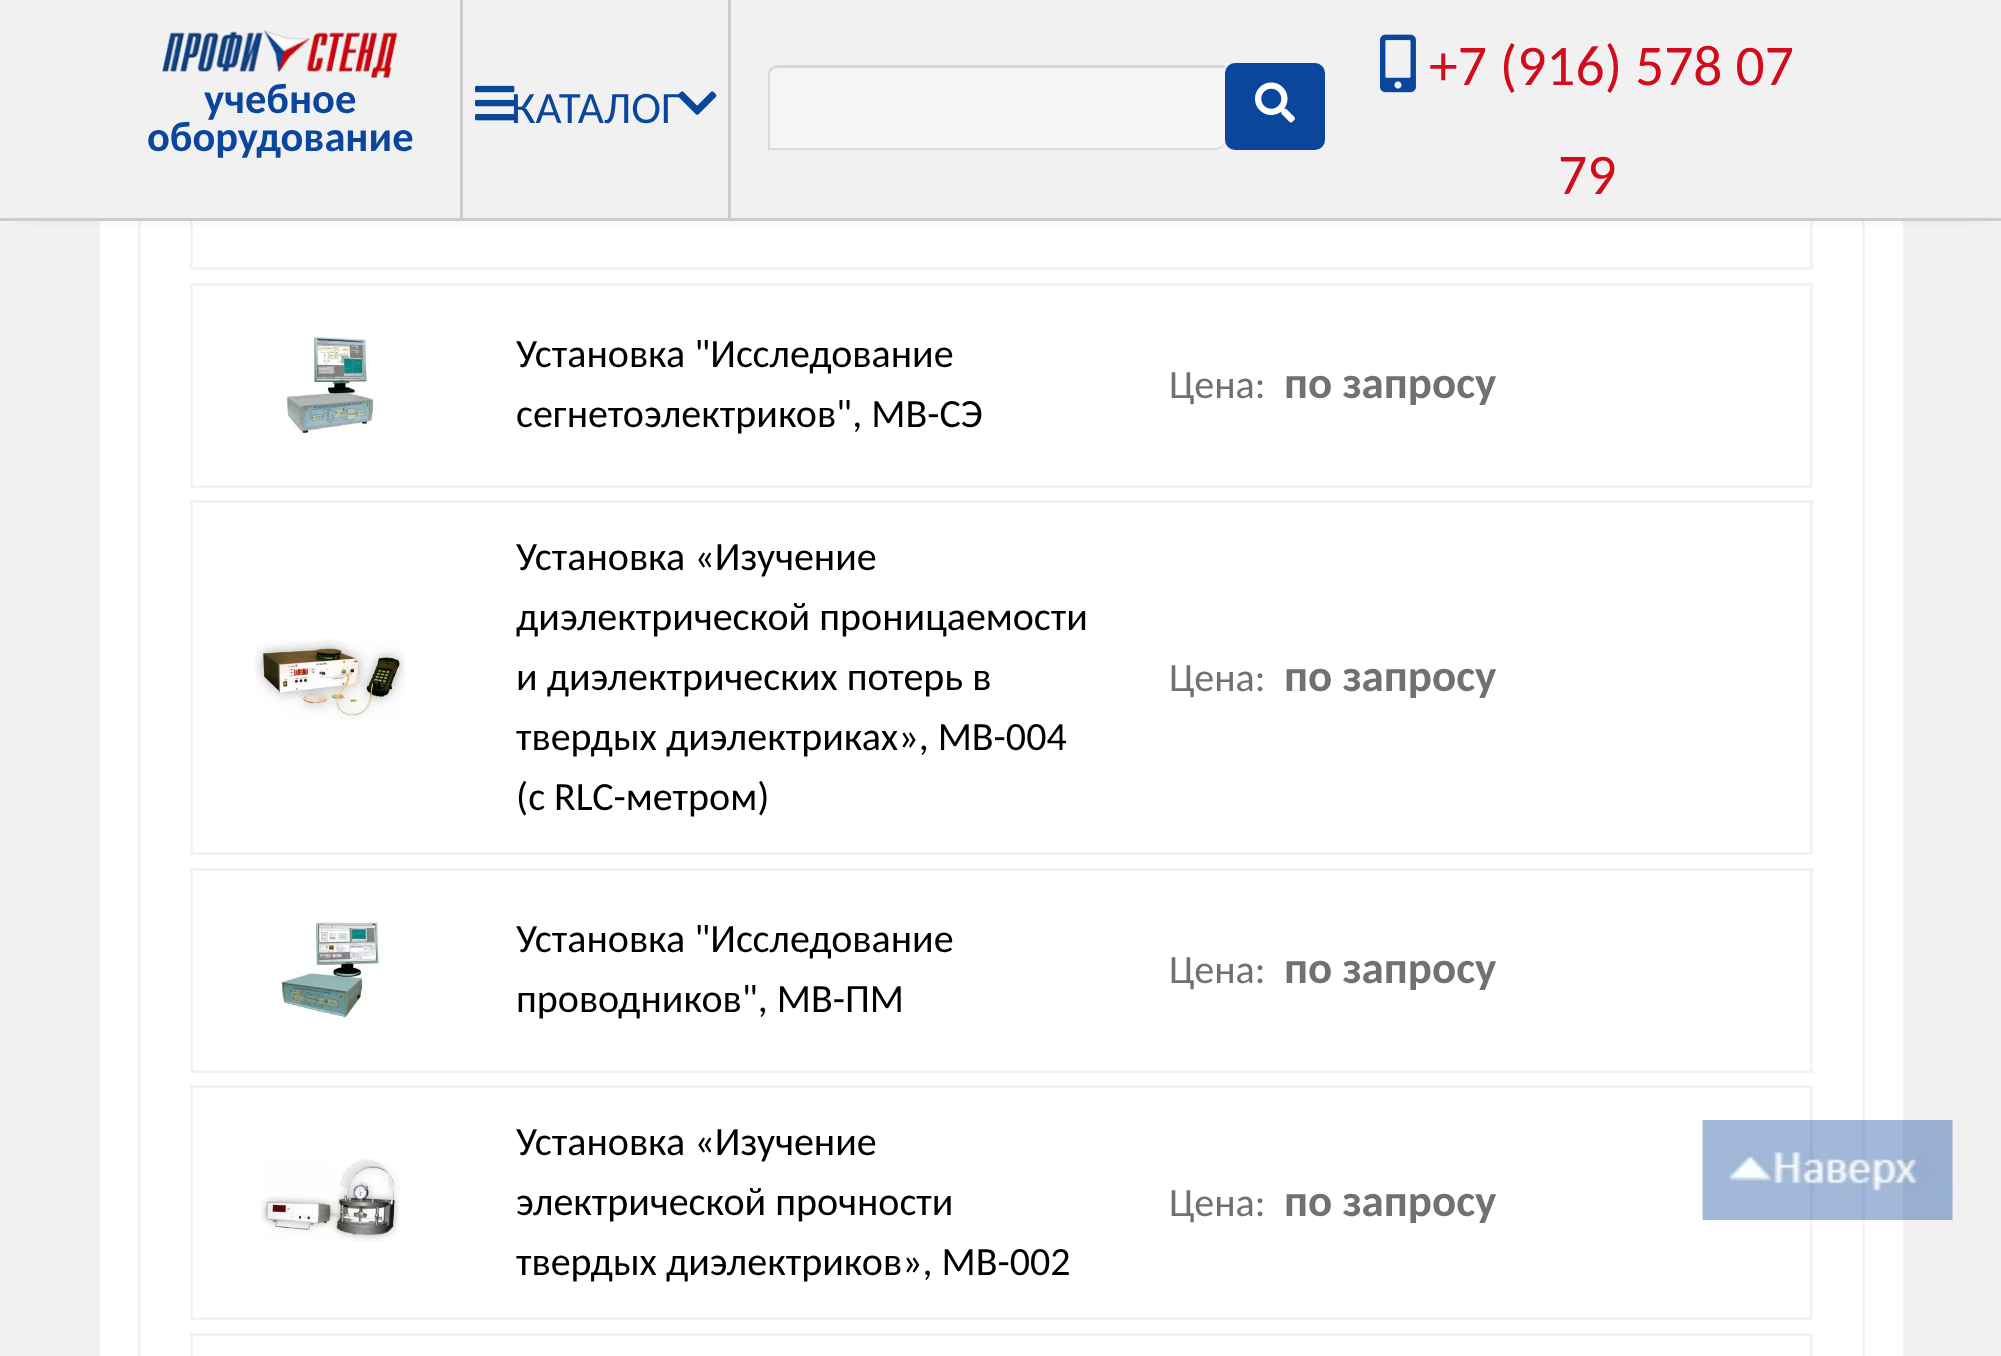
async function draw(canvas) {
	canvas.width = 2001;
	canvas.height = 1356;
	const c = canvas.getContext('2d');
	c.miterLimit = 4;
	c.fontKerning = 'normal';
	async function loadImage(src) {
		const img = new Image();
		img.src = src;
		await img.decode();
		return img;
	}

	c.fillStyle = '#f1f1f1';
	c.fillRect(0, 0, 2001, 1356);
	c.fillStyle = '#fff';
	c.fillRect(100, 221, 1803, 1135);
	c.strokeStyle = '#f3f3f3';
	c.lineWidth = 3;
	c.strokeRect(139.5, -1.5, 1724, 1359);
	c.strokeRect(191.5, 36.5, 1620, 232);
	c.fillStyle = '#000';
	c.filter = 'blur(12.5px)';
	c.beginPath();
	c.rect(23, 25, 1957, 175);
	c.fill();
	c.filter = 'none';
	c.fillStyle = '#f1f1f1';
	c.fillRect(0, 0, 2001, 218);
	c.fillStyle = '#ccc';
	c.fillRect(0, 218, 2001, 3);
	c.drawImage(await loadImage('img1.png'), 162, 29, 236, 49);
	c.font = 'bold 42.5px Carlito';
	c.fillStyle = '#0b469d';
	c.fillText('учебное', 204, 113);
	c.fillText('оборудование', 147, 151);
	c.fillStyle = '#ccc';
	c.fillRect(728, 0, 3, 218);
	c.fillRect(460, 0, 3, 218);
	c.font = '45px Carlito';
	c.fillStyle = '#0b469d';
	c.fillText('КАТАЛОГ', 511, 123);
	c.drawImage(await loadImage('img2.png'), 475, 85, 40, 36);
	c.drawImage(await loadImage('img3.png'), 678, 91, 39, 24);
	c.fillStyle = '#f5f5f5';
	c.beginPath();
	c.roundRect(768, 65, 457, 85, [10, 0, 10, 0]);
	c.fill();
	c.fillStyle = '#d5dadc';
	c.beginPath();
	c.moveTo(778, 65);
	c.lineTo(1225, 65);
	c.lineTo(1225, 140);
	c.bezierCurveTo(1225, 146, 1221, 150, 1215, 150);
	c.lineTo(768, 150);
	c.lineTo(768, 75);
	c.bezierCurveTo(768, 69, 772, 65, 778, 65);
	c.closePath();
	c.moveTo(778, 68);
	c.lineTo(1225, 68);
	c.lineTo(1225, 140);
	c.bezierCurveTo(1225, 144, 1221, 148, 1215, 148);
	c.lineTo(770, 148);
	c.lineTo(770, 75);
	c.bezierCurveTo(770, 71, 773, 68, 778, 68);
	c.closePath();
	c.fill('evenodd');
	c.fillStyle = '#0b469d';
	c.beginPath();
	c.roundRect(1225, 63, 100, 87, 10);
	c.fill();
	c.drawImage(await loadImage('img4.png'), 1255, 82, 40, 41);
	c.drawImage(await loadImage('img5.png'), 1380, 34, 36, 59);
	c.font = '57.5px Carlito';
	c.fillStyle = '#d30c1d';
	c.fillText('+7 (916) 578 07', 1429, 85);
	c.fillText('79', 1558, 194);
	c.strokeRect(191.5, 284.5, 1620, 202);
	c.drawImage(await loadImage('img6.png'), 285, 335, 90, 100);
	c.font = '40px Carlito';
	c.fillStyle = '#000';
	c.fillText('Установка "Исследование', 516, 367);
	c.fillText('сегнетоэлектриков", МВ-СЭ', 516, 427);
	c.fillStyle = '#717171';
	c.fillText('Цена:', 1169, 398);
	c.font = 'bold 45px Carlito';
	c.fillText('по запросу', 1284, 398);
	c.strokeRect(191.5, 501.5, 1620, 352);
	c.drawImage(await loadImage('img7.png'), 255, 639, 150, 81);
	c.font = '40px Carlito';
	c.fillStyle = '#000';
	for (const [text, x, y] of [
		['Установка «Изучение', 516, 570],
		['диэлектрической проницаемости', 516, 630],
		['и диэлектрических потерь в', 516, 690],
		['твердых диэлектриках», МВ-004', 516, 750],
		['(с RLC-метром)', 516, 810],
	]) {
		c.fillText(text, x, y);
	}
	c.fillStyle = '#717171';
	c.fillText('Цена:', 1169, 691);
	c.font = 'bold 45px Carlito';
	c.fillText('по запросу', 1284, 691);
	c.strokeRect(191.5, 869.5, 1620, 202);
	c.drawImage(await loadImage('img8.png'), 281, 921, 99, 98);
	c.font = '40px Carlito';
	c.fillStyle = '#000';
	c.fillText('Установка "Исследование', 516, 952);
	c.fillText('проводников", МВ-ПМ', 516, 1012);
	c.fillStyle = '#717171';
	c.fillText('Цена:', 1169, 983);
	c.font = 'bold 45px Carlito';
	c.fillText('по запросу', 1284, 983);
	c.strokeRect(191.5, 1086.5, 1620, 232);
	c.drawImage(await loadImage('img9.png'), 260, 1159, 140, 83);
	c.font = '40px Carlito';
	c.fillStyle = '#000';
	for (const [text, x, y] of [
		['Установка «Изучение', 516, 1155],
		['электрической прочности', 516, 1215],
		['твердых диэлектриков», МВ-002', 516, 1275],
	]) {
		c.fillText(text, x, y);
	}
	c.fillStyle = '#717171';
	c.fillText('Цена:', 1169, 1216);
	c.font = 'bold 45px Carlito';
	c.fillText('по запросу', 1284, 1216);
	c.strokeRect(191.5, 1334.5, 1620, 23);
	c.drawImage(await loadImage('img10.png'), 1702, 1120, 251, 100);
}

draw(document.querySelector('canvas'));
